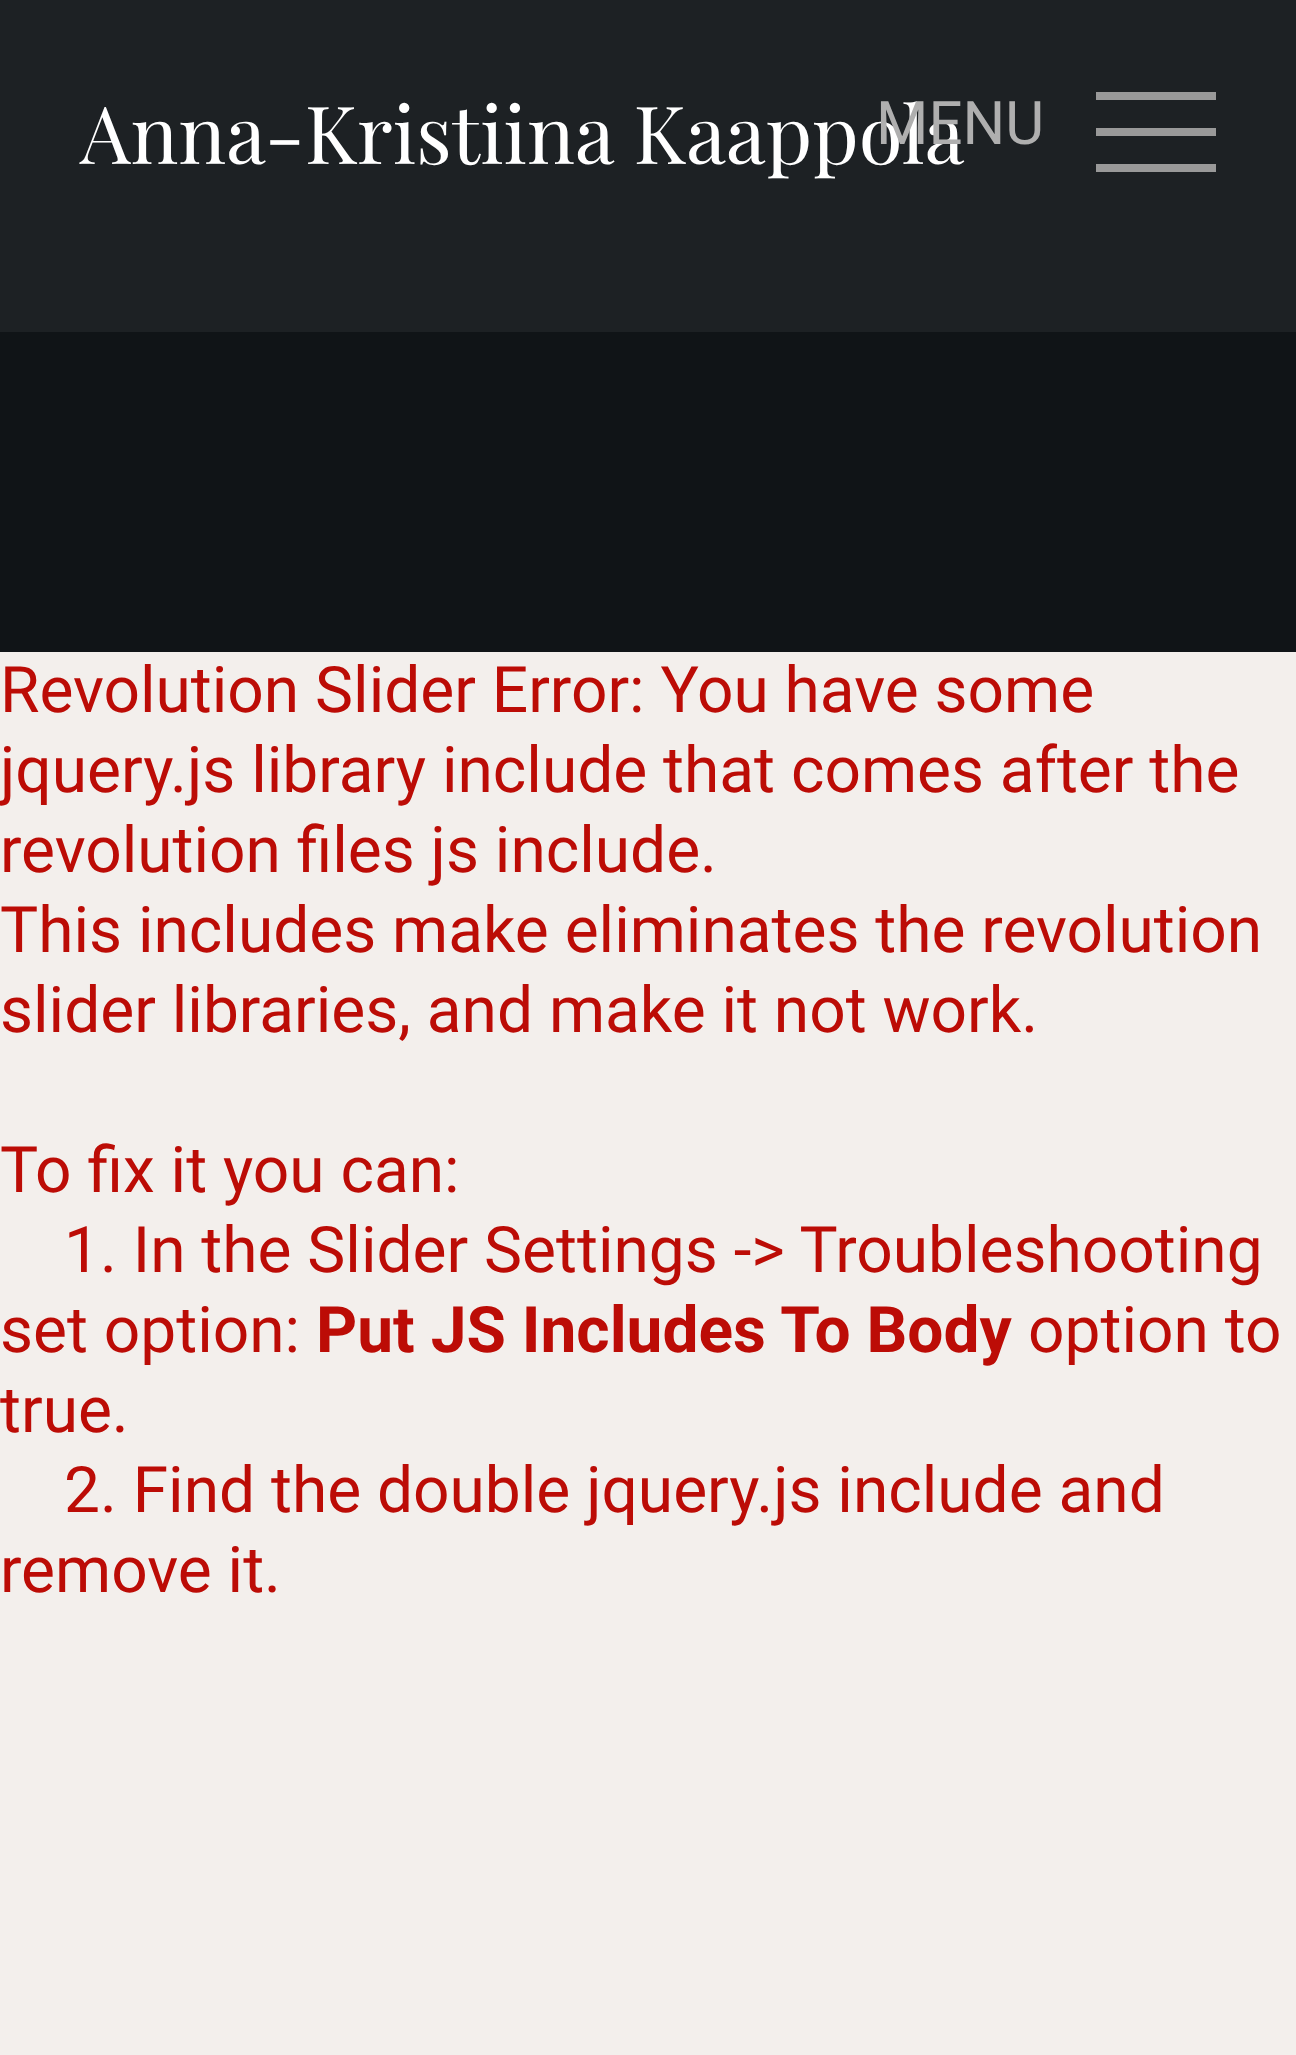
async function draw(canvas) {
	canvas.width = 1296;
	canvas.height = 2055;
	const c = canvas.getContext('2d');
	c.miterLimit = 4;
	c.fontKerning = 'normal';

	c.fillStyle = '#101417';
	c.fillRect(0, 0, 1296, 2055);
	c.fillStyle = '#1d2124';
	c.fillRect(0, 0, 1296, 332);
	c.font = '80px Playfair Display';
	c.fillStyle = '#fff';
	c.fillText('Anna-Kristiina Kaappola', 80, 164);
	c.font = '60px Roboto';
	c.fillStyle = '#afafaf';
	c.fillText('MENU', 876, 144);
	for (const [x, y, w, h, color] of [
		[1096, 92, 120, 8, '#999'],
		[1096, 128, 120, 8, '#999'],
		[1096, 164, 120, 8, '#999'],
		[0, 652, 1296, 1403, '#f3efec'],
	]) {
		c.fillStyle = color;
		c.fillRect(x, y, w, h);
	}
	c.font = '64px Roboto';
	c.fillStyle = '#bc0c06';
	for (const [text, x, y] of [
		['Revolution Slider Error: You have some', 0, 712],
		['jquery.js library include that comes after the', 0, 792],
		['revolution files js include.', 0, 872],
		['This includes make eliminates the revolution', 0, 952],
		['slider libraries, and make it not work.', 0, 1032],
		['To fix it you can:', 0, 1192],
		['1. In the Slider Settings -> Troubleshooting', 64, 1272],
		['set option:', 0, 1352],
	]) {
		c.fillText(text, x, y);
	}
	c.font = 'bold 64px Roboto';
	c.fillText('Put JS Includes To Body', 316, 1352);
	c.font = '64px Roboto';
	for (const [text, x, y] of [
		['option to', 1028, 1352],
		['true.', 0, 1432],
		['2. Find the double jquery.js include and', 64, 1512],
		['remove it.', 0, 1592],
	]) {
		c.fillText(text, x, y);
	}
}

draw(document.querySelector('canvas'));
